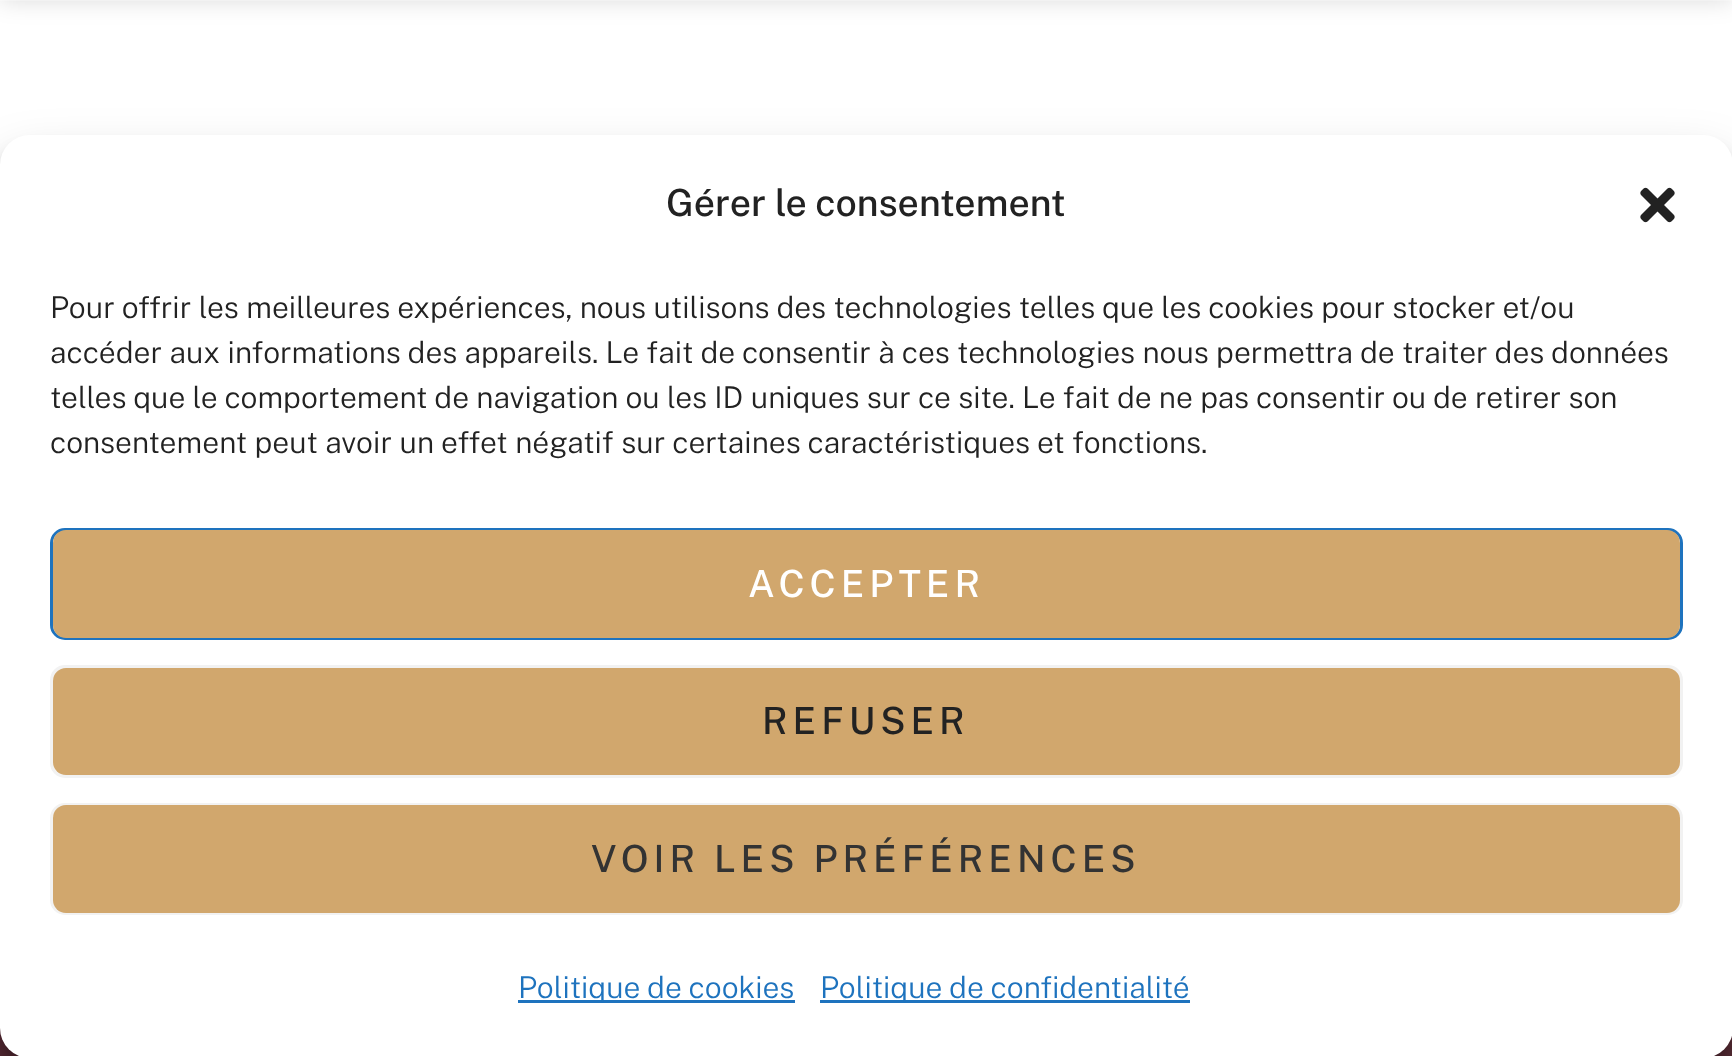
async function draw(canvas) {
	canvas.width = 1732;
	canvas.height = 1056;
	const c = canvas.getContext('2d');
	c.miterLimit = 4;
	c.fontKerning = 'normal';
	async function loadImage(src) {
		const img = new Image();
		img.src = src;
		await img.decode();
		return img;
	}

	c.fillStyle = '#fff';
	c.fillRect(0, 0, 1732, 1056);
	c.fillStyle = '#00000026';
	c.filter = 'blur(12.5px)';
	c.beginPath();
	c.rect(0, -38, 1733, 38);
	c.fill();
	c.filter = 'none';
	c.fillStyle = '#ffffff4d';
	c.fillRect(0, 0, 1732, 1);
	c.fillStyle = '#490d19';
	c.fillRect(0, 1028, 1732, 28);
	c.drawImage(await loadImage('img2.png'), 0, 1028, 1732, 28);
	c.fillStyle = '#0000003b';
	c.filter = 'blur(7.5px)';
	c.beginPath();
	c.roundRect(0, 150, 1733, 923, 30);
	c.fill();
	c.filter = 'none';
	c.fillStyle = '#00000030';
	c.filter = 'blur(25px)';
	c.beginPath();
	c.roundRect(0, 160, 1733, 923, 30);
	c.fill();
	c.filter = 'none';
	c.fillStyle = '#fff';
	c.beginPath();
	c.roundRect(0, 135, 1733, 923, 30);
	c.fill();
	c.font = '500 37.5px Public Sans';
	c.fillStyle = '#222';
	c.fillText('Gérer le consentement', 666, 216);
	c.drawImage(await loadImage('img1.png'), 1640, 187, 35, 36);
	c.font = '300 30px Public Sans';
	for (const [text, x, y] of [
		['Pour offrir les meilleures expériences, nous utilisons des technologies telles que les cookies pour stocker et/ou', 50, 318],
		['accéder aux informations des appareils. Le fait de consentir à ces technologies nous permettra de traiter des données', 50, 363],
		['telles que le comportement de navigation ou les ID uniques sur ce site. Le fait de ne pas consentir ou de retirer son', 50, 408],
		['consentement peut avoir un effet négatif sur certaines caractéristiques et fonctions.', 50, 453],
	]) {
		c.fillText(text, x, y);
	}
	c.beginPath();
	c.roundRect(51.5, 529.5, 1630, 109, 13.5);
	c.strokeStyle = '#1e73be';
	c.lineWidth = 3;
	c.stroke();
	c.fillStyle = '#d1a76d';
	c.beginPath();
	c.roundRect(53, 530, 1627, 108, 13);
	c.fill();
	c.letterSpacing = '5px';
	c.font = '500 37.5px Public Sans';
	c.fillStyle = '#fff';
	c.fillText('ACCEPTER', 748, 597);
	c.fillStyle = '#f9f9f9';
	c.beginPath();
	c.roundRect(51.5, 666.5, 1630, 110, 13.5);
	c.fill();
	c.strokeStyle = '#f2f2f2';
	c.stroke();
	c.fillStyle = '#d1a76d';
	c.beginPath();
	c.roundRect(53, 668, 1627, 107, 13);
	c.fill();
	c.fillStyle = '#222';
	c.fillText('REFUSER', 762, 734);
	c.beginPath();
	c.roundRect(51.5, 804.5, 1630, 109, 13.5);
	c.stroke();
	c.fillStyle = '#d1a76d';
	c.beginPath();
	c.roundRect(53, 805, 1627, 108, 13);
	c.fill();
	c.fillStyle = '#333';
	c.fillText('VOIR LES PRÉFÉRENCES', 591, 872);
	c.fillStyle = '#1e73be';
	c.fillRect(518, 1000, 277, 3);
	c.letterSpacing = '0px';
	c.font = '300 30px Public Sans';
	c.fillText('Politique de cookies', 518, 998);
	c.fillRect(820, 1000, 370, 3);
	c.fillText('Politique de confidentialité', 820, 998);
}

draw(document.querySelector('canvas'));
